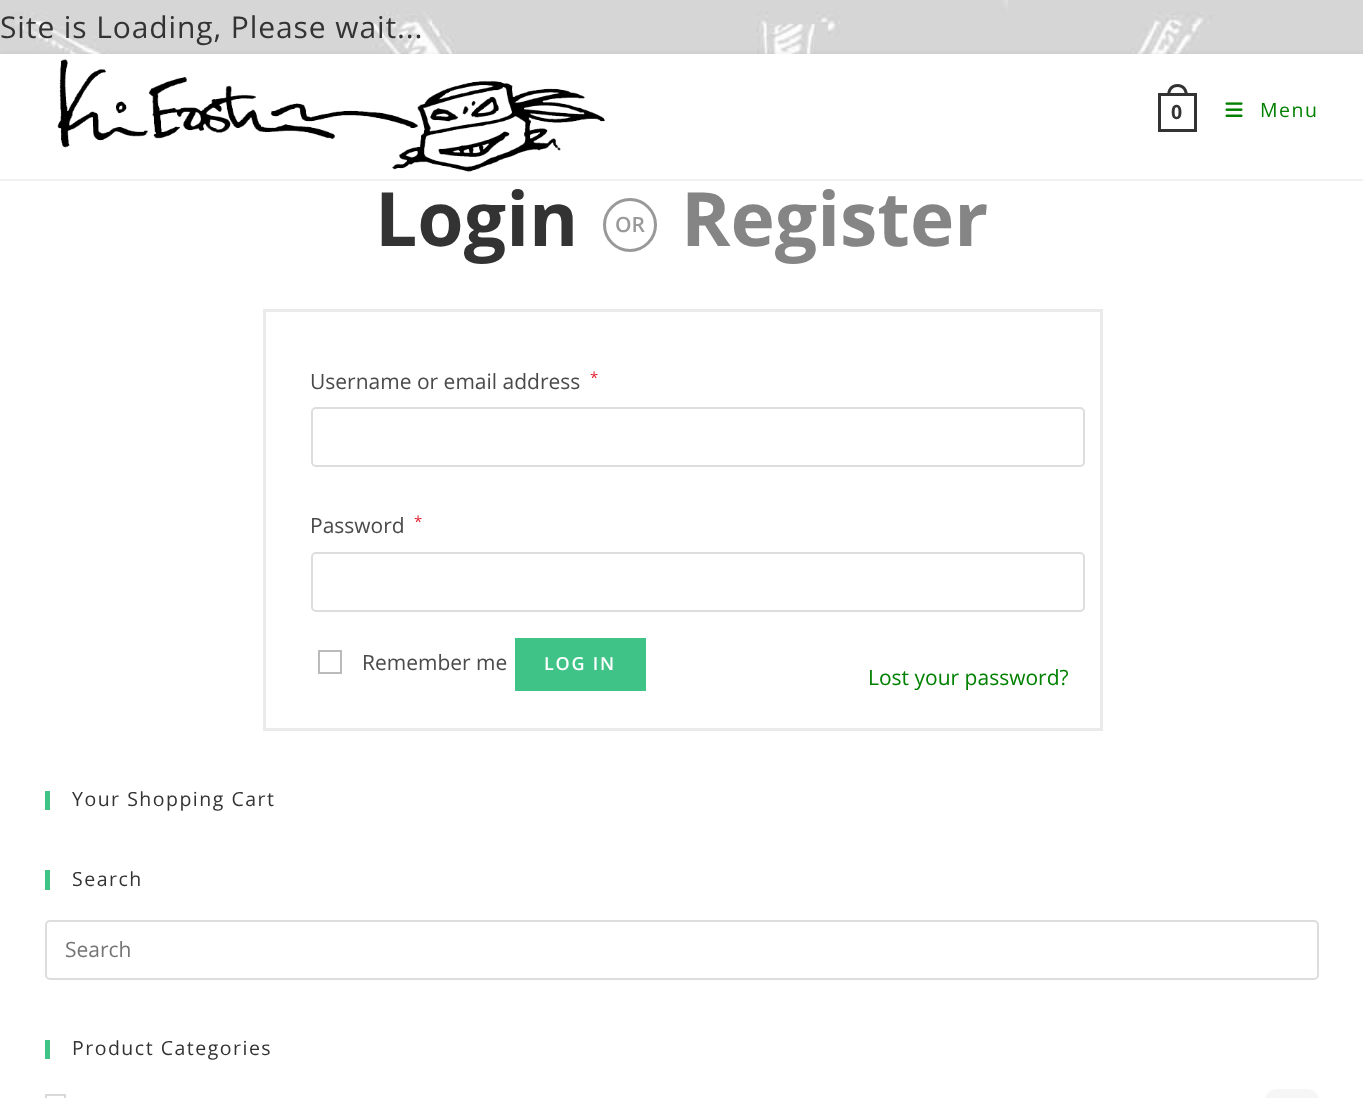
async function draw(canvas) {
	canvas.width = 1363;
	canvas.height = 1098;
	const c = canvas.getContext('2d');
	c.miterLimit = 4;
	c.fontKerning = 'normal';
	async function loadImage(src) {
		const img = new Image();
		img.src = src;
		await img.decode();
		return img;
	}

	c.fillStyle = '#fff';
	c.fillRect(0, 0, 1363, 1098);
	c.drawImage(await loadImage('img1.png'), 0, 0, 1363, 54);
	c.letterSpacing = '0.9px';
	c.font = '30px Open Sans';
	c.fillStyle = '#333';
	c.fillText('Site is Loading, Please wait...', 0, 38);
	c.fillStyle = '#00000026';
	c.filter = 'blur(3px)';
	c.beginPath();
	c.rect(0, 56, 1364, 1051);
	c.fill();
	c.filter = 'none';
	c.fillStyle = '#fff';
	c.fillRect(0, 54, 1363, 1044);
	c.fillStyle = '#f1f1f1';
	c.fillRect(0, 179, 1363, 2);
	c.drawImage(await loadImage('img2.png'), 57, 59, 548, 113);
	c.strokeStyle = '#333';
	c.lineWidth = 3;
	c.strokeRect(1159.5, 94.5, 36, 36);
	c.fillStyle = '#333';
	c.beginPath();
	c.moveTo(1177.5, 84);
	c.bezierCurveTo(1184.5, 84, 1188, 89.5, 1188, 96);
	c.lineTo(1167, 96);
	c.bezierCurveTo(1167, 89.5, 1170.5, 84, 1177.5, 84);
	c.closePath();
	c.moveTo(1177.5, 87);
	c.bezierCurveTo(1183, 87, 1185, 91.5, 1185, 96);
	c.lineTo(1170, 96);
	c.bezierCurveTo(1170, 91.5, 1172, 87, 1177.5, 87);
	c.closePath();
	c.fill('evenodd');
	c.letterSpacing = '1.5px';
	c.font = 'bold 19.5px Open Sans';
	c.fillText('0', 1171, 119);
	c.drawImage(await loadImage('img3.png'), 1225, 102, 18, 15);
	c.font = '19.5px Open Sans';
	c.fillStyle = '#008000';
	c.fillText('Menu', 1260, 117);
	c.letterSpacing = '0px';
	c.font = 'bold 75px Open Sans';
	c.fillStyle = '#333';
	c.fillText('Login', 375, 246);
	c.beginPath();
	c.arc(630, 225, 25.5, 0, 2 * Math.PI);
	c.strokeStyle = '#999';
	c.stroke();
	c.font = '600 21px Open Sans';
	c.fillStyle = '#999';
	c.fillText('OR', 615, 232);
	c.font = 'bold 75px Open Sans';
	c.fillStyle = '#858585';
	c.fillText('Register', 681, 246);
	c.strokeStyle = '#eaeaea';
	c.strokeRect(264.5, 310.5, 837, 419);
	c.font = '21px Open Sans';
	c.fillStyle = '#4a4a4a';
	c.fillText('Username or email address', 310, 389);
	c.font = '15px Open Sans';
	c.fillStyle = '#e42234';
	c.fillText('*', 590, 383);
	c.beginPath();
	c.roundRect(312, 408, 772, 58, 4);
	c.strokeStyle = '#ddd';
	c.lineWidth = 2;
	c.stroke();
	c.font = '21px Open Sans';
	c.fillStyle = '#4a4a4a';
	c.fillText('Password', 310, 533);
	c.font = '15px Open Sans';
	c.fillStyle = '#e42234';
	c.fillText('*', 414, 527);
	c.beginPath();
	c.roundRect(312, 553, 772, 58, 4);
	c.stroke();
	c.strokeStyle = '#bbb';
	c.strokeRect(319, 651, 22, 22);
	c.font = '21px Open Sans';
	c.fillStyle = '#4a4a4a';
	c.fillText('Remember me', 362, 670);
	c.fillStyle = '#3fc387';
	c.fillRect(515, 638, 131, 53);
	c.letterSpacing = '1.75px';
	c.font = '600 18px Open Sans';
	c.fillStyle = '#fff';
	c.fillText('LOG IN', 544, 670);
	c.letterSpacing = '0px';
	c.font = '21px Open Sans';
	c.fillStyle = '#008000';
	c.fillText('Lost your password?', 868, 685);
	c.fillStyle = '#3fc387';
	c.fillRect(45, 791, 5, 19);
	c.letterSpacing = '1.5px';
	c.font = '19.5px Open Sans';
	c.fillStyle = '#333';
	c.fillText('Your Shopping Cart', 72, 806);
	c.fillStyle = '#3fc387';
	c.fillRect(45, 870, 5, 20);
	c.fillStyle = '#333';
	c.fillText('Search', 72, 886);
	c.beginPath();
	c.roundRect(46, 921, 1272, 58, 4);
	c.strokeStyle = '#ddd';
	c.stroke();
	c.letterSpacing = '0px';
	c.font = '21px Open Sans';
	c.fillStyle = '#757575';
	c.fillText('Search', 65, 957);
	c.fillStyle = '#3fc387';
	c.fillRect(45, 1040, 5, 19);
	c.letterSpacing = '1.5px';
	c.font = '19.5px Open Sans';
	c.fillStyle = '#333';
	c.fillText('Product Categories', 72, 1055);
	c.strokeStyle = '#d9d9d9';
	c.strokeRect(46, 1095, 19, 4);
	c.fillStyle = '#f6f6f6';
	c.beginPath();
	c.roundRect(1265, 1089, 54, 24, 15);
	c.fill();
}

draw(document.querySelector('canvas'));
